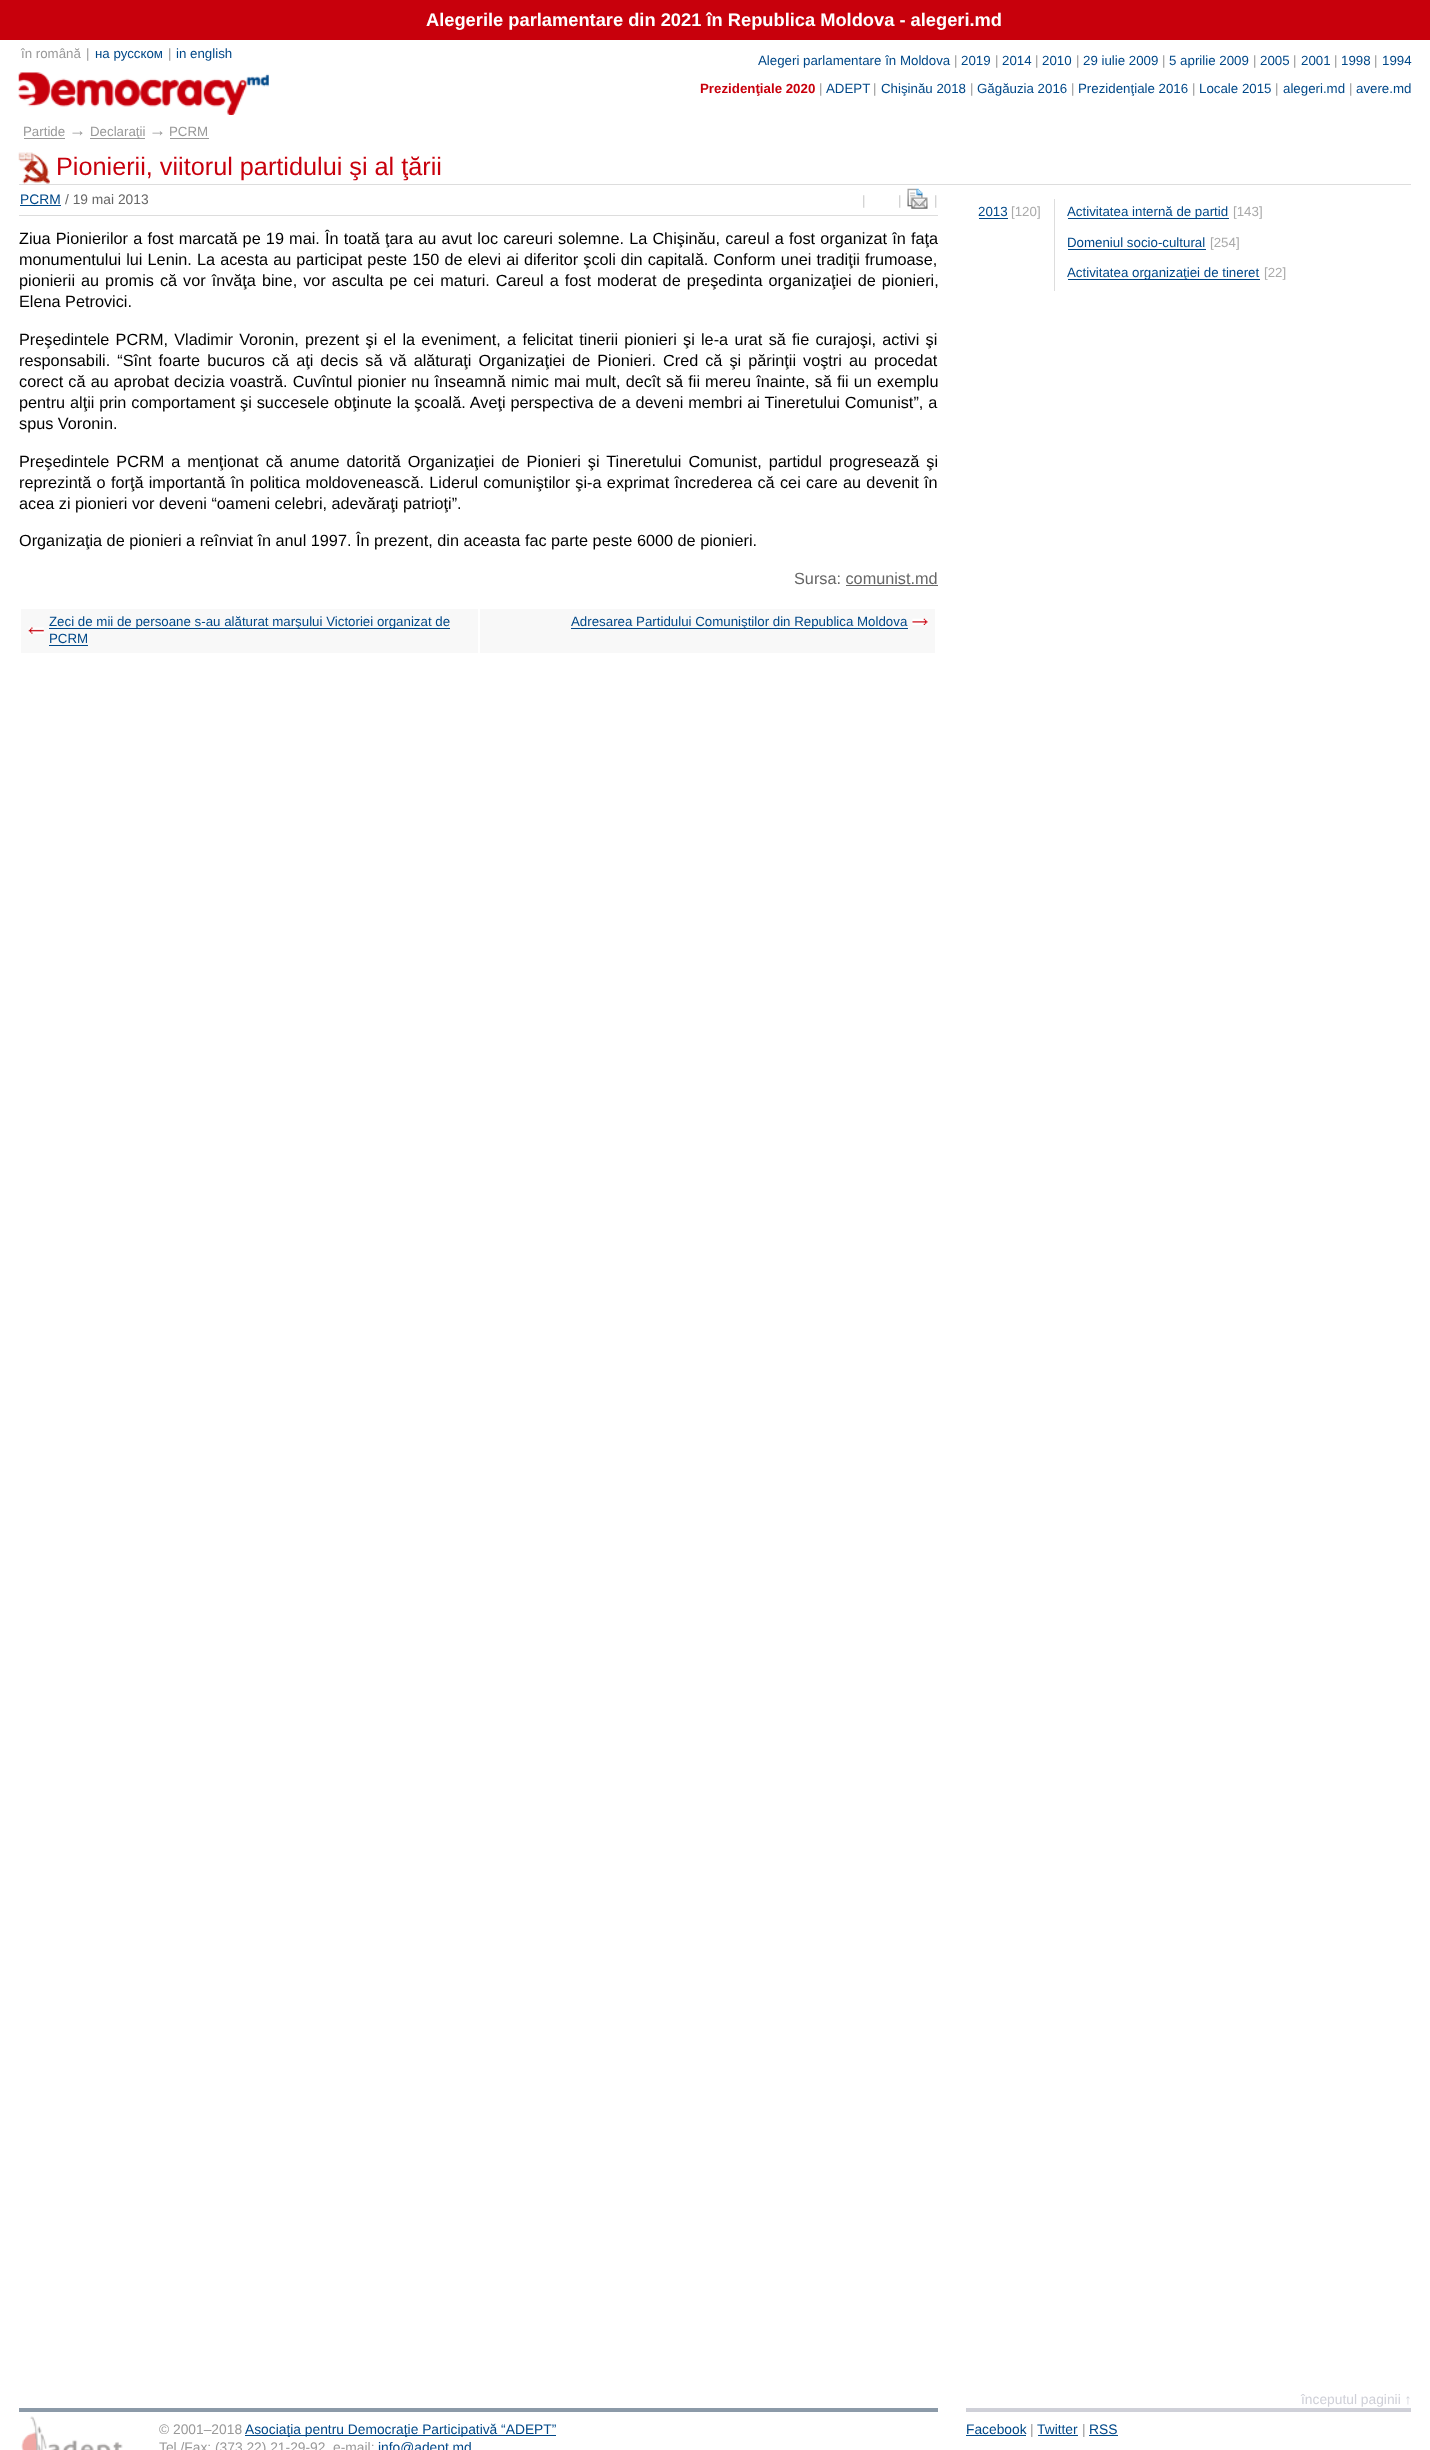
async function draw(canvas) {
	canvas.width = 1430;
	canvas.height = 2450;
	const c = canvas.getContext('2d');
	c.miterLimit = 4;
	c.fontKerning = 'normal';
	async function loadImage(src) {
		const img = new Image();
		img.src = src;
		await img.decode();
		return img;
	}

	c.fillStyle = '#fff';
	c.fillRect(0, 0, 1430, 2450);
	c.fillStyle = '#c8000c';
	c.fillRect(0, 0, 1430, 40);
	c.font = 'bold 18.3px Liberation Sans';
	c.fillStyle = '#fff';
	c.fillText('Alegerile parlamentare din 2021 în Republica Moldova - alegeri.md', 426, 26);
	c.font = '13.3px Liberation Sans';
	c.fillStyle = '#999';
	c.fillText('în română', 21, 58);
	c.fillText('|', 86, 58);
	c.fillStyle = '#004888';
	c.fillText('на русском', 95, 58);
	c.fillStyle = '#999';
	c.fillText('|', 168, 58);
	c.fillStyle = '#004888';
	c.fillText('in english', 176, 58);
	c.drawImage(await loadImage('img1.png'), 18, 72, 251, 43);
	c.fillText('Alegeri parlamentare în Moldova', 758, 65);
	c.fillStyle = '#999';
	c.fillText('|', 954, 65);
	c.fillStyle = '#004888';
	c.fillText('2019', 961, 65);
	c.fillStyle = '#999';
	c.fillText('|', 995, 65);
	c.fillStyle = '#004888';
	c.fillText('2014', 1002, 65);
	c.fillStyle = '#999';
	c.fillText('|', 1035, 65);
	c.fillStyle = '#004888';
	c.fillText('2010', 1042, 65);
	c.fillStyle = '#999';
	c.fillText('|', 1076, 65);
	c.fillStyle = '#004888';
	c.fillText('29 iulie 2009', 1083, 65);
	c.fillStyle = '#999';
	c.fillText('|', 1162, 65);
	c.fillStyle = '#004888';
	c.fillText('5 aprilie 2009', 1169, 65);
	c.fillStyle = '#999';
	c.fillText('|', 1253, 65);
	c.fillStyle = '#004888';
	c.fillText('2005', 1260, 65);
	c.fillStyle = '#999';
	c.fillText('|', 1293, 65);
	c.fillStyle = '#004888';
	c.fillText('2001', 1301, 65);
	c.fillStyle = '#999';
	c.fillText('|', 1334, 65);
	c.fillStyle = '#004888';
	c.fillText('1998', 1341, 65);
	c.fillStyle = '#999';
	c.fillText('|', 1374, 65);
	c.fillStyle = '#004888';
	c.fillText('1994', 1382, 65);
	c.font = 'bold 13.3px Liberation Sans';
	c.fillStyle = '#c8000c';
	c.fillText('Prezidenţiale 2020', 700, 93);
	c.font = '13.3px Liberation Sans';
	c.fillStyle = '#999';
	c.fillText('|', 819, 93);
	c.fillStyle = '#004888';
	c.fillText('ADEPT', 826, 93);
	c.fillStyle = '#999';
	c.fillText('|', 873, 93);
	c.fillStyle = '#004888';
	c.fillText('Chişinău 2018', 881, 93);
	c.fillStyle = '#999';
	c.fillText('|', 970, 93);
	c.fillStyle = '#004888';
	c.fillText('Găgăuzia 2016', 977, 93);
	c.fillStyle = '#999';
	c.fillText('|', 1071, 93);
	c.fillStyle = '#004888';
	c.fillText('Prezidenţiale 2016', 1078, 93);
	c.fillStyle = '#999';
	c.fillText('|', 1192, 93);
	c.fillStyle = '#004888';
	c.fillText('Locale 2015', 1199, 93);
	c.fillStyle = '#999';
	c.fillText('|', 1275, 93);
	c.fillStyle = '#004888';
	c.fillText('alegeri.md', 1283, 93);
	c.fillStyle = '#999';
	c.fillText('|', 1349, 93);
	c.fillStyle = '#004888';
	c.fillText('avere.md', 1356, 93);
	c.fillStyle = '#999';
	c.fillText('Partide', 23, 136);
	c.fillRect(24, 138, 41, 1);
	c.font = '17px Liberation Sans';
	c.fillText('→', 69, 136);
	c.fillRect(90, 138, 55, 1);
	c.font = '13.3px Liberation Sans';
	c.fillText('Declaraţii', 90, 136);
	c.font = '17px Liberation Sans';
	c.fillText('→', 149, 136);
	c.font = '13.3px Liberation Sans';
	c.fillText('PCRM', 169, 136);
	c.fillRect(170, 138, 39, 1);
	c.drawImage(await loadImage('img2.png'), 18, 152, 32, 32);
	c.fillStyle = '#ddd';
	c.fillRect(19, 184, 1392, 1);
	c.font = '25.25px Liberation Sans';
	c.fillStyle = '#c8000c';
	c.fillText('Pionierii, viitorul partidului şi al ţării', 56, 175);
	c.font = '13.8px Liberation Sans';
	c.fillStyle = '#004888';
	c.fillText('PCRM', 20, 204);
	c.fillRect(20, 205, 41, 1);
	c.fillStyle = '#666';
	c.fillText('/ 19 mai 2013', 65, 204);
	c.font = '13.3px Liberation Sans';
	c.fillStyle = '#ccc';
	c.fillText('|', 862, 205);
	c.fillText('|', 898, 205);
	c.drawImage(await loadImage('img3.png'), 907, 188, 21, 21);
	c.fillText('|', 934, 205);
	c.fillStyle = '#ddd';
	c.fillRect(19, 215, 919, 1);
	c.wordSpacing = '0.65px';
	c.font = '16.25px Liberation Sans';
	c.fillStyle = '#000';
	c.fillText('Ziua Pionierilor a fost marcată pe 19 mai. În toată ţara au avut loc careuri solemne. La Chişinău, careul a fost organizat în faţa', 19, 244);
	c.wordSpacing = '0.6px';
	c.fillText('monumentului lui Lenin. La acesta au participat peste 150 de elevi ai diferitor şcoli din capitală. Conform unei tradiţii frumoase,', 19, 265);
	c.wordSpacing = '1.5px';
	c.fillText('pionierii au promis că vor învăţa bine, vor asculta pe cei maturi. Careul a fost moderat de preşedinta organizaţiei de pionieri,', 19, 286);
	c.wordSpacing = '0px';
	c.fillText('Elena Petrovici.', 19, 307);
	c.wordSpacing = '1.75px';
	c.fillText('Preşedintele PCRM, Vladimir Voronin, prezent şi el la eveniment, a felicitat tinerii pionieri şi le-a urat să fie curajoşi, activi şi', 19, 345);
	c.wordSpacing = '2.5px';
	c.fillText('responsabili. “Sînt foarte bucuros că aţi decis să vă alăturaţi Organizaţiei de Pionieri. Cred că şi părinţii voştri au procedat', 19, 366);
	c.wordSpacing = '0.6px';
	c.fillText('corect că au aprobat decizia voastră. Cuvîntul pionier nu înseamnă nimic mai mult, decît să fii mereu înainte, să fii un exemplu', 19, 387);
	c.wordSpacing = '0.4px';
	c.fillText('pentru alţii prin comportament şi succesele obţinute la şcoală. Aveţi perspectiva de a deveni membri ai Tineretului Comunist”, a', 19, 408);
	c.wordSpacing = '0px';
	c.fillText('spus Voronin.', 19, 429);
	c.wordSpacing = '2.5px';
	c.fillText('Preşedintele PCRM a menţionat că anume datorită Organizaţiei de Pionieri şi Tineretului Comunist, partidul progresează şi', 19, 467);
	c.wordSpacing = '0.8px';
	c.fillText('reprezintă o forţă importantă în politica moldovenească. Liderul comuniştilor şi-a exprimat încrederea că cei care au devenit în', 19, 488);
	c.wordSpacing = '0px';
	c.fillText('acea zi pionieri vor deveni “oameni celebri, adevăraţi patrioţi”.', 19, 509);
	c.fillText('Organizaţia de pionieri a reînviat în anul 1997. În prezent, din aceasta fac parte peste 6000 de pionieri.', 19, 546);
	c.fillStyle = '#666';
	c.fillText('Sursa: comunist.md', 794, 584);
	c.fillRect(846, 585, 92, 1);
	c.fillStyle = '#f8f8f8';
	c.fillRect(21, 609, 457, 44);
	c.drawImage(await loadImage('img4.png'), 28, 627, 16, 7);
	c.fillStyle = '#004888';
	c.fillRect(49, 628, 401, 1);
	c.font = '13.3px Liberation Sans';
	c.fillText('Zeci de mii de persoane s-au alăturat marşului Victoriei organizat de', 49, 626);
	c.fillText('PCRM', 49, 643);
	c.fillRect(49, 645, 39, 1);
	c.fillStyle = '#f8f8f8';
	c.fillRect(480, 609, 455, 44);
	c.drawImage(await loadImage('img5.png'), 912, 618, 16, 7);
	c.fillStyle = '#004888';
	c.fillRect(571, 628, 337, 1);
	c.fillText('Adresarea Partidului Comuniştilor din Republica Moldova', 571, 626);
	c.fillStyle = '#ddd';
	c.fillRect(1054, 199, 1, 92);
	c.fillStyle = '#004888';
	c.fillText('2013', 978, 216);
	c.fillRect(979, 218, 29, 1);
	c.fillStyle = '#aaa';
	c.fillText('[120]', 1011, 216);
	c.fillStyle = '#004888';
	c.fillRect(1068, 218, 161, 1);
	c.fillText('Activitatea internă de partid', 1067, 216);
	c.fillStyle = '#aaa';
	c.fillText('[143]', 1233, 216);
	c.fillStyle = '#004888';
	c.fillText('Domeniul socio-cultural', 1067, 247);
	c.fillRect(1068, 249, 138, 1);
	c.fillStyle = '#aaa';
	c.fillText('[254]', 1210, 247);
	c.fillStyle = '#004888';
	c.fillRect(1068, 279, 192, 1);
	c.fillText('Activitatea organizaţiei de tineret', 1067, 277);
	c.fillStyle = '#aaa';
	c.fillText('[22]', 1264, 277);
	c.font = '13.8px Liberation Sans';
	c.fillStyle = '#cfd0d8';
	c.fillText('începutul paginii ↑', 1301, 2404);
	c.fillStyle = '#8c9aa8';
	c.fillRect(19, 2408, 919, 4);
	c.drawImage(await loadImage('img6.png'), 21, 2416, 102, 34);
	c.fillStyle = '#999';
	c.fillText('© 2001–2018', 159, 2434);
	c.fillStyle = '#004888';
	c.fillRect(245, 2435, 311, 1);
	c.fillText('Asociaţia pentru Democraţie Participativă “ADEPT”', 245, 2434);
	c.fillStyle = '#999';
	c.fillText('Tel./Fax: (373 22) 21-29-92, e-mail:', 159, 2452);
	c.fillStyle = '#004888';
	c.fillText('info@adept.md', 378, 2452);
	c.fillStyle = '#cfd0d8';
	c.fillRect(966, 2408, 445, 4);
	c.fillStyle = '#004888';
	c.fillText('Facebook', 966, 2434);
	c.fillRect(966, 2435, 60, 1);
	c.fillStyle = '#999';
	c.fillText('|', 1030, 2434);
	c.fillStyle = '#004888';
	c.fillText('Twitter', 1037, 2434);
	c.fillRect(1038, 2435, 40, 1);
	c.fillStyle = '#999';
	c.fillText('|', 1082, 2434);
	c.fillStyle = '#004888';
	c.fillText('RSS', 1089, 2434);
	c.fillRect(1089, 2435, 29, 1);
}

draw(document.querySelector('canvas'));
